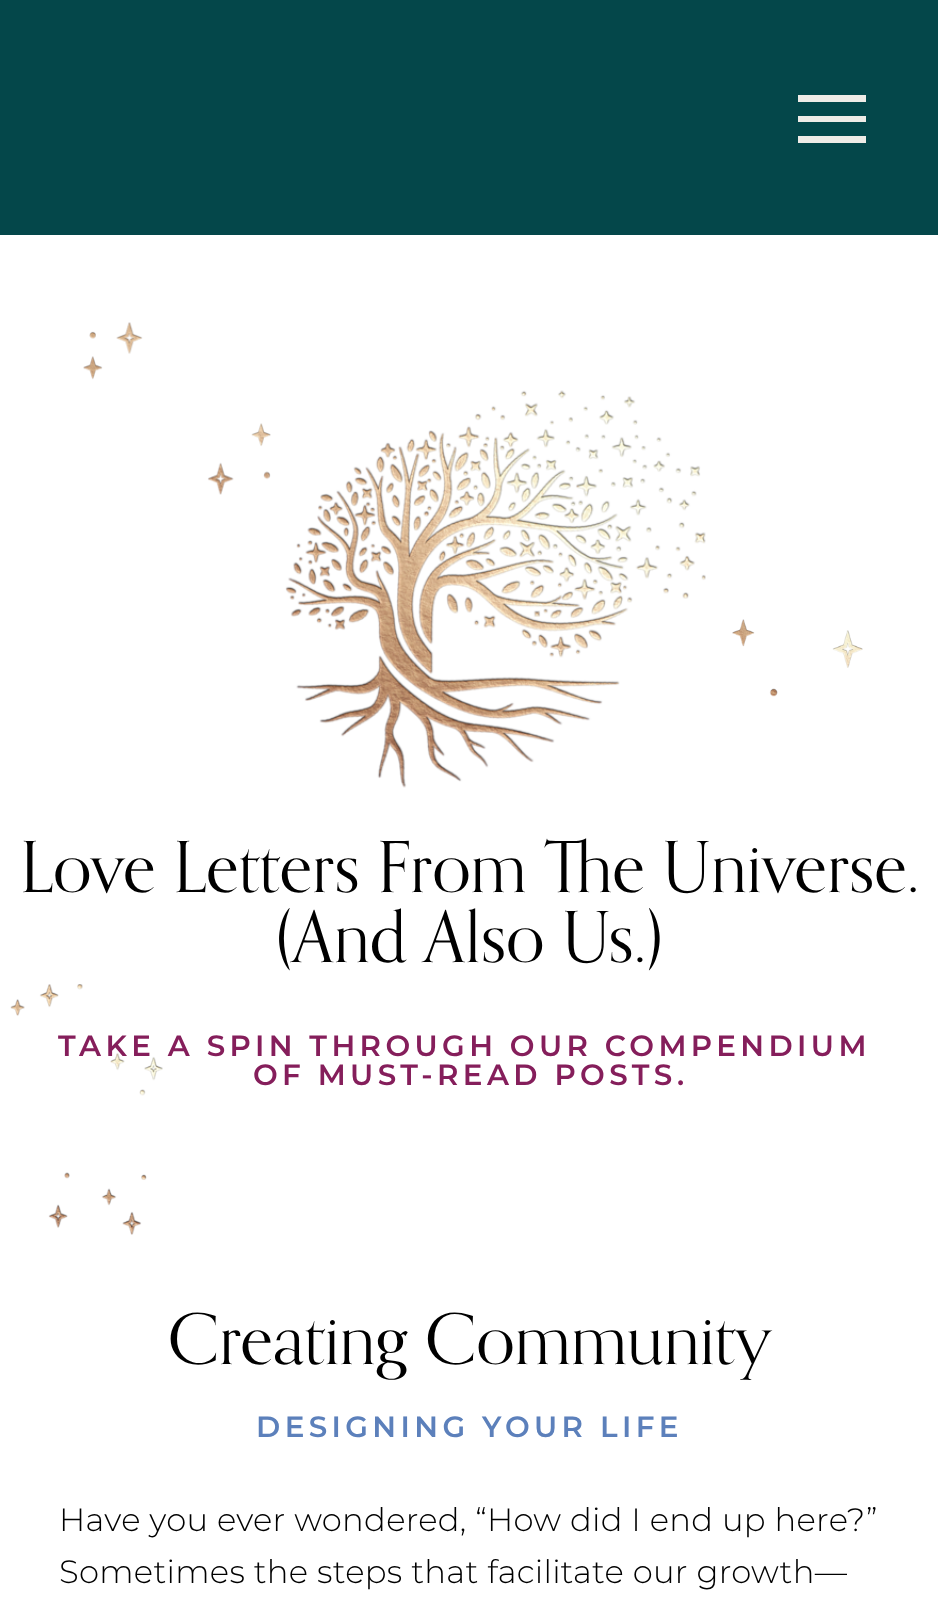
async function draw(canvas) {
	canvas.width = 938;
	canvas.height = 1610;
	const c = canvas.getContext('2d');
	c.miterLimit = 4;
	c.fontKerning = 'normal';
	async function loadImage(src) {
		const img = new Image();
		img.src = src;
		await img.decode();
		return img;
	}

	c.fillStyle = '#fff';
	c.fillRect(0, 0, 938, 1610);
	c.fillStyle = '#04474a';
	c.fillRect(0, 0, 938, 235);
	c.fillStyle = '#efece7';
	c.beginPath();
	c.moveTo(798, 116);
	c.lineTo(866, 116);
	c.lineTo(866, 122);
	c.lineTo(798, 122);
	c.closePath();
	c.moveTo(798, 95);
	c.lineTo(866, 95);
	c.lineTo(866, 102);
	c.lineTo(798, 102);
	c.closePath();
	c.moveTo(798, 136);
	c.lineTo(866, 136);
	c.lineTo(866, 143);
	c.lineTo(798, 143);
	c.closePath();
	c.fill();
	c.drawImage(await loadImage('img1.png'), 83, 322, 188, 173);
	c.drawImage(await loadImage('img2.png'), 285, 390, 421, 398);
	c.drawImage(await loadImage('img3.png'), 732, 619, 131, 78);
	c.font = '70.4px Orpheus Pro';
	c.fillStyle = '#000';
	c.fillText('Love Letters From The Universe.', 20, 892);
	c.fillText('(And Also Us.)', 276, 962);
	c.letterSpacing = '4.4px';
	c.font = '600 29.35px Montserrat';
	c.fillStyle = '#851e5b';
	c.fillText('TAKE A SPIN THROUGH OUR COMPENDIUM', 58, 1056);
	c.fillText('OF MUST-READ POSTS.', 253, 1085);
	c.drawImage(await loadImage('img4.png'), 10, 984, 153, 251);
	c.letterSpacing = '0px';
	c.font = '70.4px Orpheus Pro';
	c.fillStyle = '#000';
	c.fillText('Creating Community', 168, 1364);
	c.letterSpacing = '4.4px';
	c.font = '600 29.35px Montserrat';
	c.fillStyle = '#5c80bb';
	c.fillText('DESIGNING YOUR LIFE', 256, 1437);
	c.letterSpacing = '0.3px';
	c.font = '300 32.25px Montserrat';
	c.fillStyle = '#000';
	c.fillText('Have you ever wondered, “How did I end up here?”', 59, 1531);
	c.fillText('Sometimes the steps that facilitate our growth—', 59, 1583);
}

draw(document.querySelector('canvas'));
